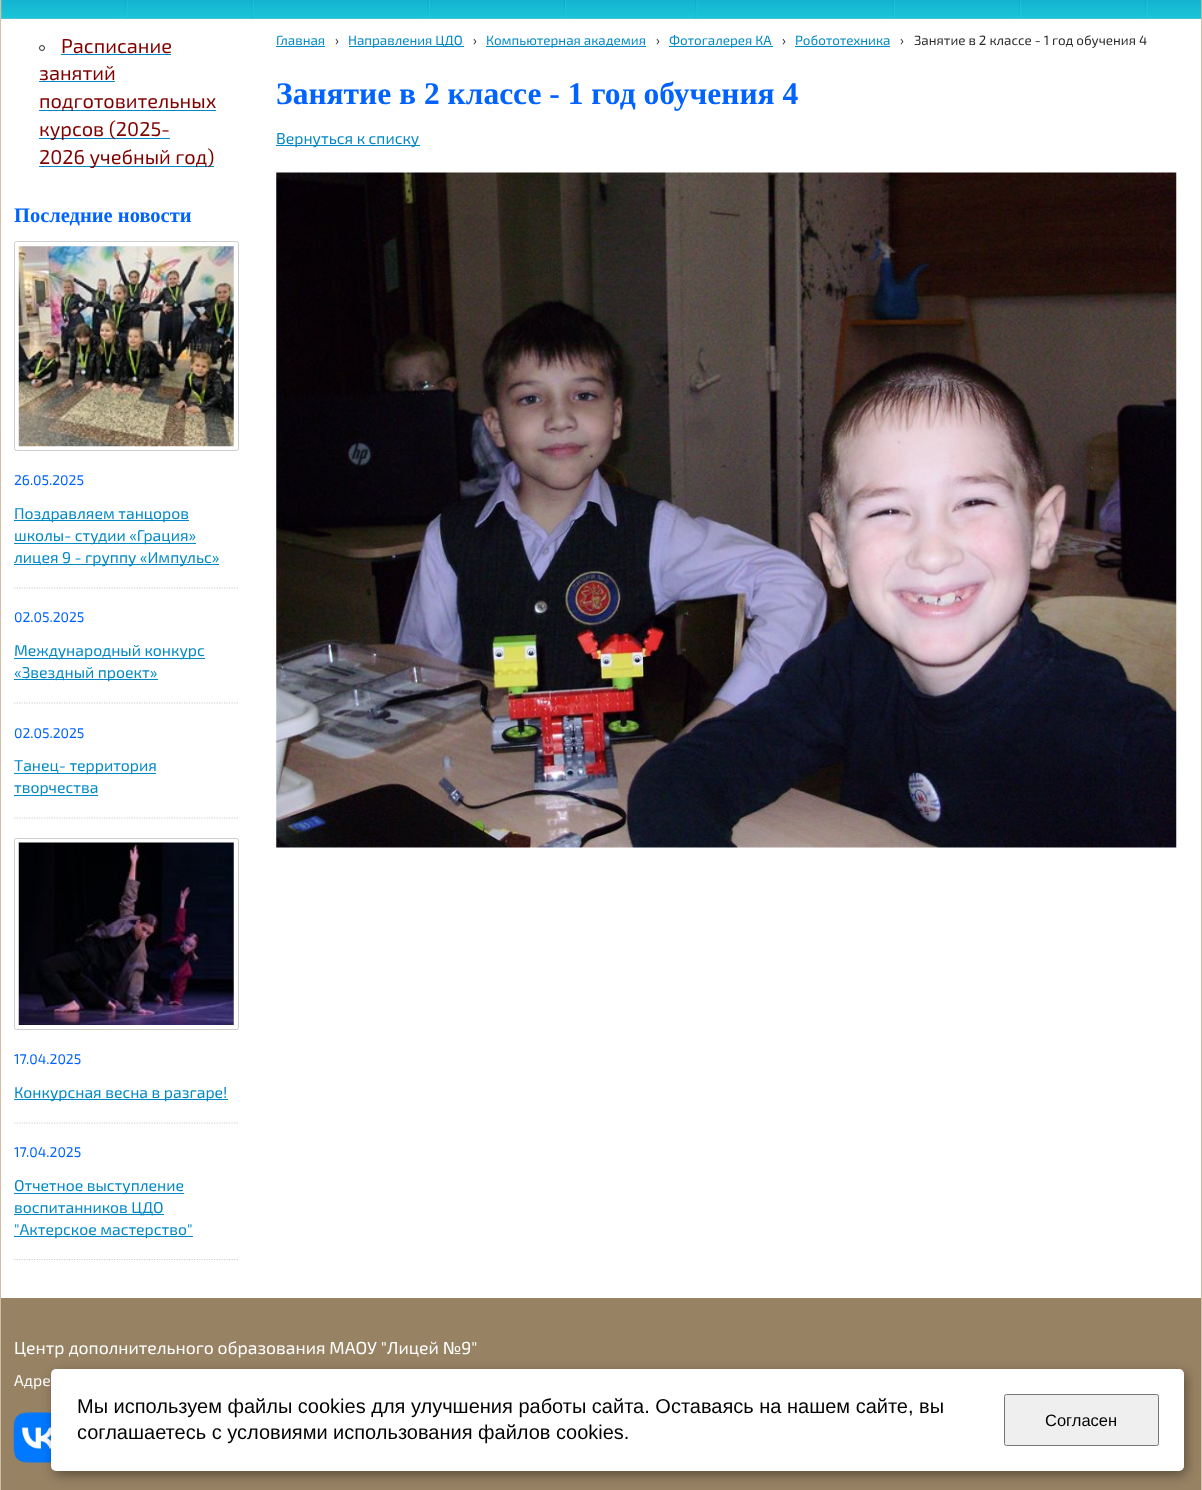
async function draw(canvas) {
	canvas.width = 1202;
	canvas.height = 1490;
	const c = canvas.getContext('2d');
	c.miterLimit = 4;
	c.fontKerning = 'normal';
	async function loadImage(src) {
		const img = new Image();
		img.src = src;
		await img.decode();
		return img;
	}
	let gradient;

	c.fillStyle = '#fff';
	c.fillRect(0, 0, 1202, 1490);
	gradient = c.createLinearGradient(601, 0, 601, 1490);
	gradient.addColorStop(0, '#d2c2a9');
	gradient.addColorStop(1, '#cfbea5');
	c.fillStyle = gradient;
	c.fillRect(0, 0, 1202, 1490);
	c.drawImage(await loadImage('img1.png'), 1, 0, 1201, 19);
	c.drawImage(await loadImage('img2.png'), 126, 0, 2, 19);
	c.drawImage(await loadImage('img3.png'), 125, 0, 2, 19);
	c.drawImage(await loadImage('img4.png'), 252, 0, 2, 19);
	c.drawImage(await loadImage('img5.png'), 251, 0, 2, 19);
	c.drawImage(await loadImage('img6.png'), 428, 0, 2, 19);
	c.drawImage(await loadImage('img7.png'), 427, 0, 2, 19);
	c.drawImage(await loadImage('img8.png'), 565, 0, 2, 19);
	c.drawImage(await loadImage('img9.png'), 563, 0, 2, 19);
	c.drawImage(await loadImage('img2.png'), 696, 0, 2, 19);
	c.drawImage(await loadImage('img3.png'), 695, 0, 2, 19);
	c.drawImage(await loadImage('img6.png'), 893, 0, 2, 19);
	c.drawImage(await loadImage('img7.png'), 892, 0, 2, 19);
	c.drawImage(await loadImage('img8.png'), 1020, 0, 2, 19);
	c.drawImage(await loadImage('img9.png'), 1018, 0, 2, 19);
	c.drawImage(await loadImage('img2.png'), 1146, 0, 2, 19);
	c.drawImage(await loadImage('img3.png'), 1145, 0, 2, 19);
	c.fillStyle = '#fff';
	c.fillRect(1, 19, 1200, 1279);
	c.beginPath();
	c.arc(42, 48, 2.5, 0, 2 * Math.PI);
	c.strokeStyle = '#2a2a2a';
	c.stroke();
	c.font = '20px "Exo 2"';
	c.fillStyle = '#800000';
	c.fillText('Расписание', 61, 53);
	c.fillStyle = '#0089c6';
	c.fillRect(61, 54, 110, 1);
	c.fillStyle = '#800000';
	c.fillText('занятий', 39, 80);
	c.fillStyle = '#0089c6';
	c.fillRect(39, 81, 76, 1);
	c.fillRect(39, 110, 177, 1);
	c.fillStyle = '#800000';
	c.fillText('подготовительных', 39, 108);
	c.fillStyle = '#0089c6';
	c.fillRect(39, 138, 131, 1);
	c.fillStyle = '#800000';
	c.fillText('курсов (2025-', 39, 136);
	c.fillStyle = '#0089c6';
	c.fillRect(39, 166, 175, 1);
	c.fillStyle = '#800000';
	c.fillText('2026 учебный год)', 39, 164);
	c.font = 'bold 20.5px Liberation Serif';
	c.fillStyle = '#0063ff';
	c.fillText('Последние новости', 14, 222);
	c.beginPath();
	c.moveTo(14, 588);
	c.lineTo(239, 588);
	c.strokeStyle = '#cdcdcd';
	c.lineWidth = 1.2;
	c.setLineDash([1.25, 1.25]);
	c.stroke();
	c.beginPath();
	c.roundRect(14.5, 241.5, 224, 209, 2);
	c.lineWidth = 1;
	c.setLineDash([]);
	c.stroke();
	c.drawImage(await loadImage('img10.png'), 18, 246, 216, 201);
	c.font = '14px "Exo 2"';
	c.fillText('26.05.2025', 14, 485);
	c.fillStyle = '#0089c6';
	c.fillRect(14, 520, 175, 1);
	c.font = '15.75px "Exo 2"';
	c.fillText('Поздравляем танцоров', 14, 519);
	c.fillRect(14, 543, 182, 1);
	c.fillText('школы- студии «Грация»', 14, 541);
	c.fillRect(14, 564, 205, 1);
	c.fillText('лицея 9 - группу «Импульс»', 14, 563);
	c.beginPath();
	c.moveTo(14, 703);
	c.lineTo(239, 703);
	c.lineWidth = 1.2;
	c.setLineDash([1.25, 1.25]);
	c.stroke();
	c.font = '14px "Exo 2"';
	c.fillStyle = '#0063ff';
	c.fillText('02.05.2025', 14, 622);
	c.fillStyle = '#0089c6';
	c.fillRect(14, 658, 191, 1);
	c.font = '15.75px "Exo 2"';
	c.fillText('Международный конкурс', 14, 656);
	c.fillRect(14, 679, 144, 1);
	c.fillText('«Звездный проект»', 14, 678);
	c.beginPath();
	c.moveTo(14, 818);
	c.lineTo(239, 818);
	c.stroke();
	c.font = '14px "Exo 2"';
	c.fillStyle = '#0063ff';
	c.fillText('02.05.2025', 14, 738);
	c.fillStyle = '#0089c6';
	c.fillRect(14, 773, 142, 1);
	c.font = '15.75px "Exo 2"';
	c.fillText('Танец- территория', 14, 771);
	c.fillRect(14, 795, 84, 1);
	c.fillText('творчества', 14, 793);
	c.beginPath();
	c.moveTo(14, 1123);
	c.lineTo(239, 1123);
	c.stroke();
	c.beginPath();
	c.roundRect(14.5, 838.5, 224, 191, 2);
	c.lineWidth = 1;
	c.setLineDash([]);
	c.stroke();
	c.drawImage(await loadImage('img11.png'), 18, 842, 216, 183);
	c.font = '14px "Exo 2"';
	c.fillStyle = '#0063ff';
	c.fillText('17.04.2025', 14, 1064);
	c.fillStyle = '#0089c6';
	c.fillRect(14, 1099, 214, 1);
	c.font = '15.75px "Exo 2"';
	c.fillText('Конкурсная весна в разгаре!', 14, 1098);
	c.beginPath();
	c.moveTo(14, 1259.5);
	c.lineTo(239, 1259.5);
	c.lineWidth = 1.2;
	c.setLineDash([1.25, 1.25]);
	c.stroke();
	c.font = '14px "Exo 2"';
	c.fillStyle = '#0063ff';
	c.fillText('17.04.2025', 14, 1157);
	c.fillStyle = '#0089c6';
	c.fillRect(14, 1193, 170, 1);
	c.font = '15.75px "Exo 2"';
	c.fillText('Отчетное выступление', 14, 1191);
	c.fillRect(14, 1214, 150, 1);
	c.fillText('воспитанников ЦДО', 14, 1213);
	c.fillRect(14, 1236, 179, 1);
	c.fillText('"Актерское мастерство"', 14, 1235);
	c.font = '13.4px "Exo 2"';
	c.fillText('Главная', 276, 45);
	c.fillRect(276, 46, 49, 1);
	c.fillStyle = '#2a2a2a';
	c.fillText('›', 335, 45);
	c.fillStyle = '#0089c6';
	c.fillRect(349, 46, 115, 1);
	c.fillText('Направления ЦДО', 348, 45);
	c.fillStyle = '#2a2a2a';
	c.fillText('›', 473, 45);
	c.fillStyle = '#0089c6';
	c.fillRect(486, 46, 160, 1);
	c.fillText('Компьютерная академия', 486, 45);
	c.fillStyle = '#2a2a2a';
	c.fillText('›', 656, 45);
	c.fillStyle = '#0089c6';
	c.fillRect(669, 46, 104, 1);
	c.fillText('Фотогалерея КА', 669, 45);
	c.fillStyle = '#2a2a2a';
	c.fillText('›', 782, 45);
	c.fillStyle = '#0089c6';
	c.fillText('Робототехника', 795, 45);
	c.fillRect(795, 46, 95, 1);
	c.fillStyle = '#2a2a2a';
	c.fillText('›', 900, 45);
	c.fillText('Занятие в 2 классе - 1 год обучения 4', 914, 45);
	c.font = 'bold 31.5px Liberation Serif';
	c.fillStyle = '#0063ff';
	c.fillText('Занятие в 2 классе - 1 год обучения 4', 276, 104);
	c.fillStyle = '#0089c6';
	c.fillRect(276, 145, 144, 1);
	c.font = '15.75px "Exo 2"';
	c.fillText('Вернуться к списку', 276, 144);
	c.drawImage(await loadImage('img12.png'), 276, 172, 901, 676);
	c.fillStyle = '#988264';
	c.fillRect(1, 1298, 1200, 192);
	c.font = '17.5px "Exo 2"';
	c.fillStyle = '#fff';
	c.fillText('Центр дополнительного образования МАОУ "Лицей №9"', 14, 1354);
	c.font = '15.75px "Exo 2"';
	c.fillText('Адре', 14, 1386);
	c.drawImage(await loadImage('img13.png'), 13, 1412, 38, 51);
	c.fillStyle = '#00000066';
	c.filter = 'blur(6px)';
	c.beginPath();
	c.roundRect(54, 1373, 1132, 102, 5);
	c.fill();
	c.filter = 'none';
	c.fillStyle = '#fff';
	c.beginPath();
	c.roundRect(51, 1369, 1133, 102, 5);
	c.fill();
	c.font = '20px Liberation Sans';
	c.fillStyle = '#000';
	c.fillText('Мы используем файлы cookies для улучшения работы сайта. Оставаясь на нашем сайте, вы', 77, 1413);
	c.fillText('соглашаетесь с условиями использования файлов cookies.', 77, 1439);
	c.fillStyle = '#efefef';
	c.beginPath();
	c.roundRect(1004.5, 1394.5, 154, 51, 2);
	c.fill();
	c.strokeStyle = '#767676';
	c.lineWidth = 1;
	c.setLineDash([]);
	c.stroke();
	c.font = '16.5px Liberation Sans';
	c.fillStyle = '#000';
	c.fillText('Согласен', 1045, 1426);
}

draw(document.querySelector('canvas'));
